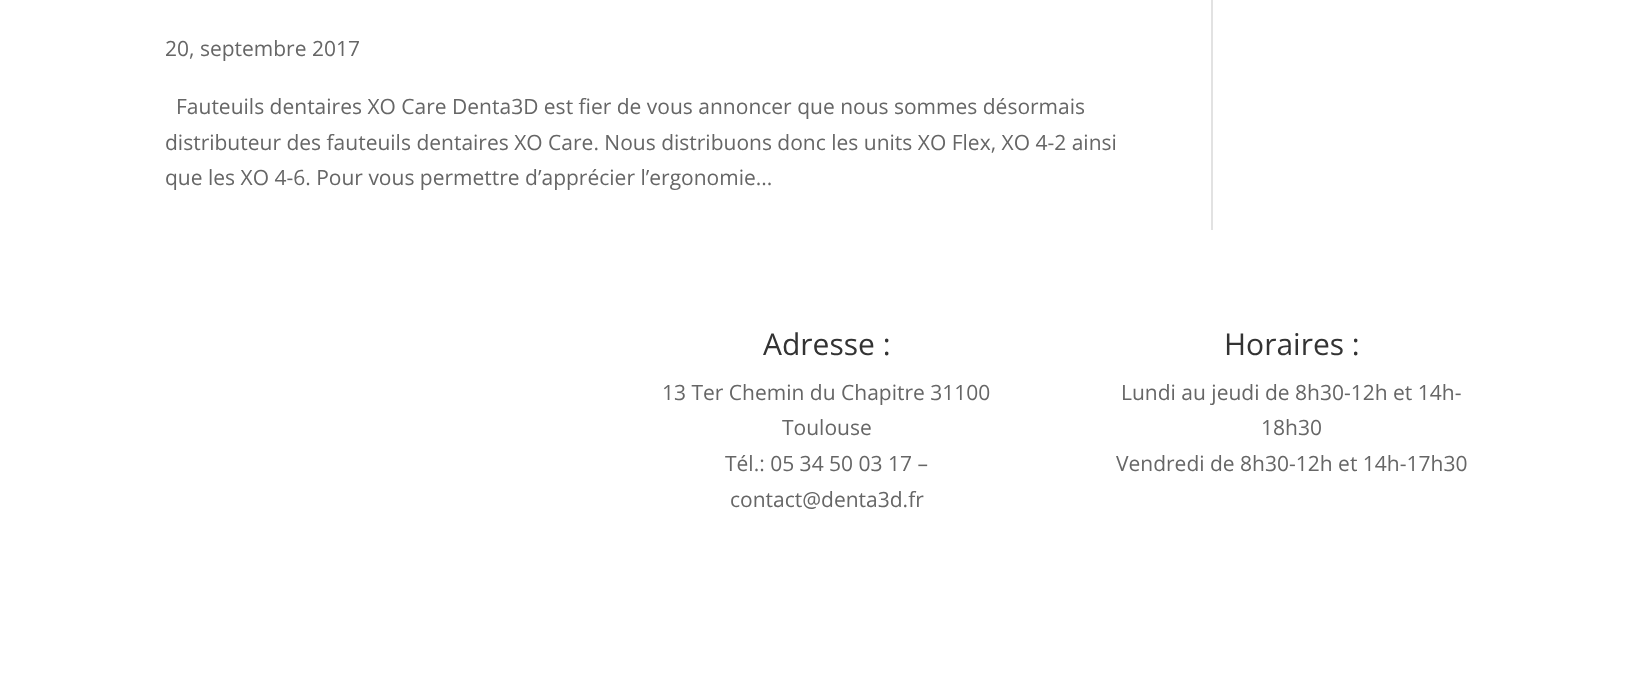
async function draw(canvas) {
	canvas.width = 1652;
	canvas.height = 680;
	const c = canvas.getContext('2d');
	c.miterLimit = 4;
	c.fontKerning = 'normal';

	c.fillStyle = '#fff';
	c.fillRect(0, 0, 1652, 680);
	c.font = '21px Open Sans';
	c.fillStyle = '#666';
	for (const [text, x, y] of [
		['20, septembre 2017', 165, 56],
		['Fauteuils dentaires XO Care Denta3D est fier de vous annoncer que nous sommes désormais', 176, 114],
		['distributeur des fauteuils dentaires XO Care. Nous distribuons donc les units XO Flex, XO 4-2 ainsi', 165, 150],
		['que les XO 4-6. Pour vous permettre d’apprécier l’ergonomie...', 165, 185],
	]) {
		c.fillText(text, x, y);
	}
	c.fillStyle = '#e2e2e2';
	c.fillRect(1211, 0, 2, 230);
	c.font = '30px Open Sans';
	c.fillStyle = '#333';
	c.fillText('Adresse :', 763, 355);
	c.font = '21px Open Sans';
	c.fillStyle = '#666';
	for (const [text, x, y] of [
		['13 Ter Chemin du Chapitre 31100', 662, 400],
		['Toulouse', 782, 435],
		['Tél.: 05 34 50 03 17 –', 725, 471],
		['contact@denta3d.fr', 730, 507],
	]) {
		c.fillText(text, x, y);
	}
	c.font = '30px Open Sans';
	c.fillStyle = '#333';
	c.fillText('Horaires :', 1224, 355);
	c.font = '21px Open Sans';
	c.fillStyle = '#666';
	for (const [text, x, y] of [
		['Lundi au jeudi de 8h30-12h et 14h-', 1121, 400],
		['18h30', 1261, 435],
		['Vendredi de 8h30-12h et 14h-17h30', 1116, 471],
	]) {
		c.fillText(text, x, y);
	}
}

draw(document.querySelector('canvas'));
